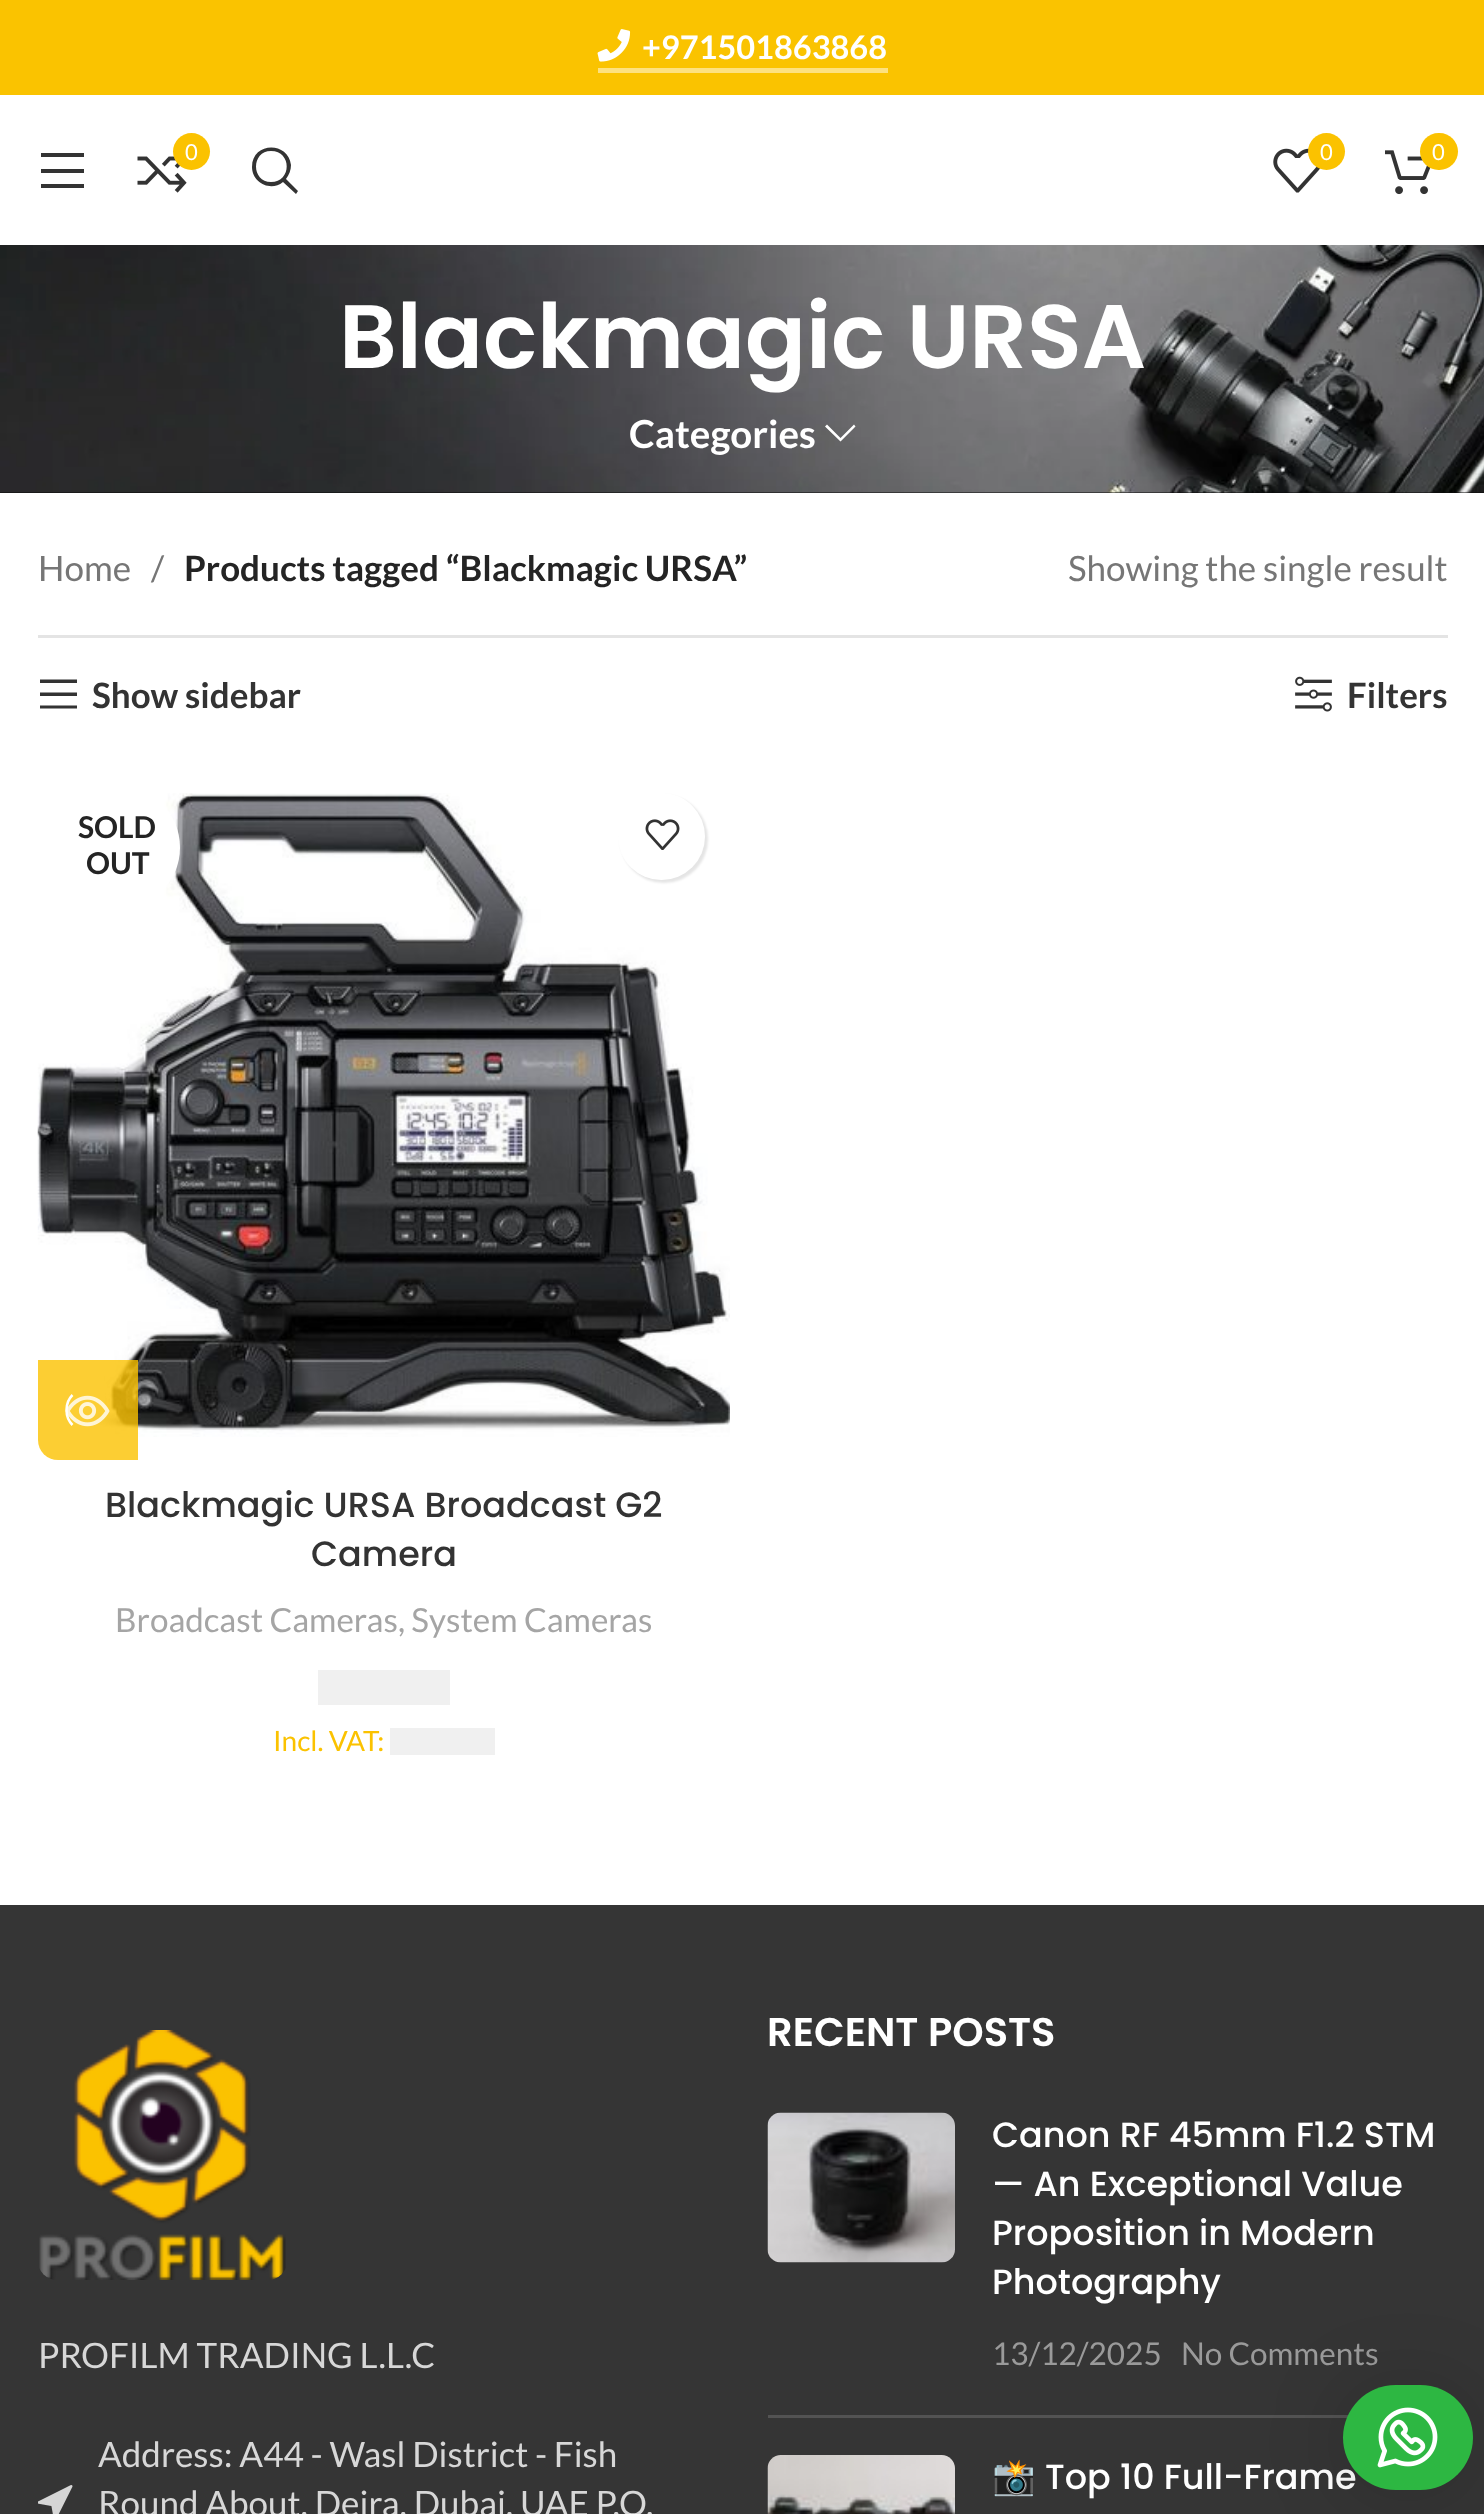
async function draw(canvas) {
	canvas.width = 1484;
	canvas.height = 2514;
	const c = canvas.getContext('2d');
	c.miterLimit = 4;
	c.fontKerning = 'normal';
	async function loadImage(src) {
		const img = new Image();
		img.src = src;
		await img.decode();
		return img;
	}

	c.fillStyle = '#fff';
	c.fillRect(0, 0, 1484, 2514);
	c.fillStyle = '#fac300';
	c.fillRect(0, 0, 1484, 95);
	c.fillStyle = '#fde180';
	c.fillRect(598, 68, 290, 5);
	c.drawImage(await loadImage('img1.png'), 597, 29, 34, 33);
	c.font = 'bold 32.5px Lato';
	c.fillStyle = '#fff';
	c.fillText('+971501863868', 642, 59);
	c.fillStyle = '#333';
	c.beginPath();
	c.moveTo(41, 157);
	c.lineTo(84, 157);
	c.lineTo(84, 153);
	c.lineTo(41, 153);
	c.closePath();
	c.moveTo(41, 173);
	c.lineTo(84, 173);
	c.lineTo(84, 169);
	c.lineTo(41, 169);
	c.closePath();
	c.moveTo(41, 188);
	c.lineTo(84, 188);
	c.lineTo(84, 184);
	c.lineTo(41, 184);
	c.closePath();
	c.fill();
	c.drawImage(await loadImage('img2.png'), 137, 156, 50, 37);
	c.fillStyle = '#fbc200';
	c.beginPath();
	c.arc(191.5, 151.5, 18.5, 0, 2 * Math.PI);
	c.fill();
	c.font = '22px Lato';
	c.fillStyle = '#fff';
	c.fillText('0', 185, 160);
	c.fillStyle = '#333';
	c.beginPath();
	c.moveTo(252, 167);
	c.bezierCurveTo(252, 183, 271, 192, 283, 182);
	c.lineTo(296, 194);
	c.lineTo(298, 191);
	c.lineTo(286, 179);
	c.bezierCurveTo(289, 175, 291, 170, 291, 165);
	c.bezierCurveTo(288, 141, 252, 142, 252, 167);
	c.closePath();
	c.moveTo(271, 182);
	c.bezierCurveTo(251, 182, 251, 151, 271, 151);
	c.bezierCurveTo(292, 151, 292, 182, 271, 182);
	c.closePath();
	c.fill();
	c.drawImage(await loadImage('img3.png'), 1273, 148, 48, 45);
	c.fillStyle = '#fbc200';
	c.beginPath();
	c.arc(1326.5, 151.5, 18.5, 0, 2 * Math.PI);
	c.fill();
	c.fillStyle = '#fff';
	c.fillText('0', 1320, 160);
	c.drawImage(await loadImage('img4.png'), 1385, 150, 46, 45);
	c.fillStyle = '#fbc200';
	c.beginPath();
	c.roundRect(1420, 133, 38, 37, 18.5);
	c.fill();
	c.fillStyle = '#fff';
	c.fillText('0', 1432, 160);
	c.fillStyle = '#0a0a0a';
	c.fillRect(0, 492, 1484, 1);
	c.drawImage(await loadImage('img5.png'), 0, 245, 1484, 248);
	c.font = '600 90px Poppins';
	c.fillStyle = '#fff';
	c.fillText('Blackmagic URSA', 339, 368);
	c.font = 'bold 38.5px Lato';
	c.fillText('Categories', 629, 448);
	c.beginPath();
	c.moveTo(854, 424.5);
	c.lineTo(840.5, 438);
	c.lineTo(827, 424.5);
	c.lineTo(825, 426.5);
	c.lineTo(840.5, 441.5);
	c.lineTo(855.5, 426.5);
	c.closePath();
	c.fill();
	c.fillStyle = '#e4e4e4';
	c.fillRect(38, 635, 1410, 3);
	c.font = '35px Lato';
	c.fillStyle = '#767676';
	c.fillText('Home', 38, 581);
	c.fillText('/', 151, 581);
	c.font = 'bold 35px Lato';
	c.fillStyle = '#242424';
	c.fillText('Products tagged “Blackmagic URSA”', 184, 581);
	c.font = '35px Lato';
	c.fillStyle = '#767676';
	c.fillText('Showing the single result', 1068, 581);
	c.fillStyle = '#333';
	c.beginPath();
	c.moveTo(40, 683);
	c.lineTo(77, 683);
	c.lineTo(77, 679.5);
	c.lineTo(40, 679.5);
	c.closePath();
	c.moveTo(40, 696);
	c.lineTo(77, 696);
	c.lineTo(77, 692.5);
	c.lineTo(40, 692.5);
	c.closePath();
	c.moveTo(40, 708.5);
	c.lineTo(77, 708.5);
	c.lineTo(77, 705.5);
	c.lineTo(40, 705.5);
	c.closePath();
	c.fill();
	c.font = 'bold 35px Lato';
	c.fillText('Show sidebar', 92, 708);
	c.drawImage(await loadImage('img6.png'), 1295, 676, 37, 36);
	c.fillText('Filters', 1347, 708);
	c.drawImage(await loadImage('img7.png'), 37, 793, 693, 644);
	c.fillStyle = '#fff';
	c.beginPath();
	c.arc(117.5, 847.5, 62.5, 0, 2 * Math.PI);
	c.fill();
	c.font = 'bold 30px Lato';
	c.fillStyle = '#242424';
	c.fillText('SOLD', 78, 838);
	c.fillText('OUT', 86, 874);
	c.fillStyle = '#0000001a';
	c.filter = 'blur(1px)';
	c.beginPath();
	c.roundRect(620, 795, 88, 88, 44);
	c.fill();
	c.filter = 'none';
	c.fillStyle = '#fff';
	c.beginPath();
	c.arc(661.5, 836.5, 43.5, 0, 2 * Math.PI);
	c.fill();
	c.drawImage(await loadImage('img8.png'), 645, 819, 35, 31);
	c.fillStyle = '#fbc200cc';
	c.beginPath();
	c.roundRect(38, 1360, 100, 100, [0, 0, 0, 20]);
	c.fill();
	c.drawImage(await loadImage('img9.png'), 65, 1395, 45, 32);
	c.beginPath();
	c.moveTo(72.5, 1425);
	c.bezierCurveTo(64.5, 1417, 64.5, 1403, 72.5, 1395);
	c.strokeStyle = '#fff';
	c.lineWidth = 2.5;
	c.stroke();
	c.font = '500 35px Poppins';
	c.fillStyle = '#333';
	c.fillText('Blackmagic URSA Broadcast G2', 105, 1517);
	c.fillText('Camera', 311, 1566);
	c.font = '33.25px Lato';
	c.fillStyle = '#a5a5a5';
	c.fillText('Broadcast Cameras, System Cameras', 115, 1632);
	c.fillStyle = '#f0f0f0';
	c.fillRect(318, 1670, 132, 35);
	c.font = '28px Lato';
	c.fillStyle = '#fbc200';
	c.fillText('Incl. VAT:', 273, 1751);
	c.fillStyle = '#f0f0f0';
	c.fillRect(390, 1728, 105, 27);
	c.fillStyle = '#353535';
	c.fillRect(0, 1905, 1484, 609);
	c.drawImage(await loadImage('img10.png'), 39, 2030, 247, 250);
	c.font = '35px Lato';
	c.fillStyle = '#d7d7d7';
	c.fillText('PROFILM TRADING L.L.C', 38, 2368);
	c.drawImage(await loadImage('img11.png'), 38, 2485, 35, 29);
	c.fillText('Address: A44 - Wasl District - Fish', 98, 2467);
	c.fillText('Round About, Deira, Dubai, UAE P.O.', 98, 2516);
	c.font = '600 40px Poppins';
	c.fillStyle = '#fff';
	c.fillText('RECENT POSTS', 767, 2046);
	c.fillStyle = '#535353';
	c.fillRect(768, 2415, 581, 3);
	c.drawImage(await loadImage('img12.png'), 767, 2112, 188, 151);
	c.font = '500 35px Poppins';
	c.fillStyle = '#fff';
	for (const [text, x, y] of [
		['Canon RF 45mm F1.2 STM', 992, 2147],
		['— An Exceptional Value', 992, 2196],
		['Proposition in Modern', 992, 2245],
		['Photography', 992, 2294],
	]) {
		c.fillText(text, x, y);
	}
	c.font = '31.5px Lato';
	c.fillStyle = '#9a9a9a';
	c.fillText('13/12/2025', 992, 2365);
	c.fillText('No Comments', 1181, 2365);
	c.drawImage(await loadImage('img13.png'), 767, 2455, 188, 59);
	c.font = '35px Noto Color Emoji';
	c.fillStyle = '#fff';
	c.fillText('📸', 992, 2489);
	c.font = '500 35px Poppins';
	c.fillText('Top 10 Full-Frame', 1045, 2489);
	c.fillStyle = '#00000029';
	c.filter = 'blur(40px)';
	c.beginPath();
	c.roundRect(1343, 2390, 130, 105, 52.5);
	c.fill();
	c.filter = 'none';
	c.fillStyle = '#2db742';
	c.beginPath();
	c.roundRect(1343, 2385, 130, 105, 52.5);
	c.fill();
	c.drawImage(await loadImage('img14.png'), 1377, 2407, 61, 61);
}

draw(document.querySelector('canvas'));
